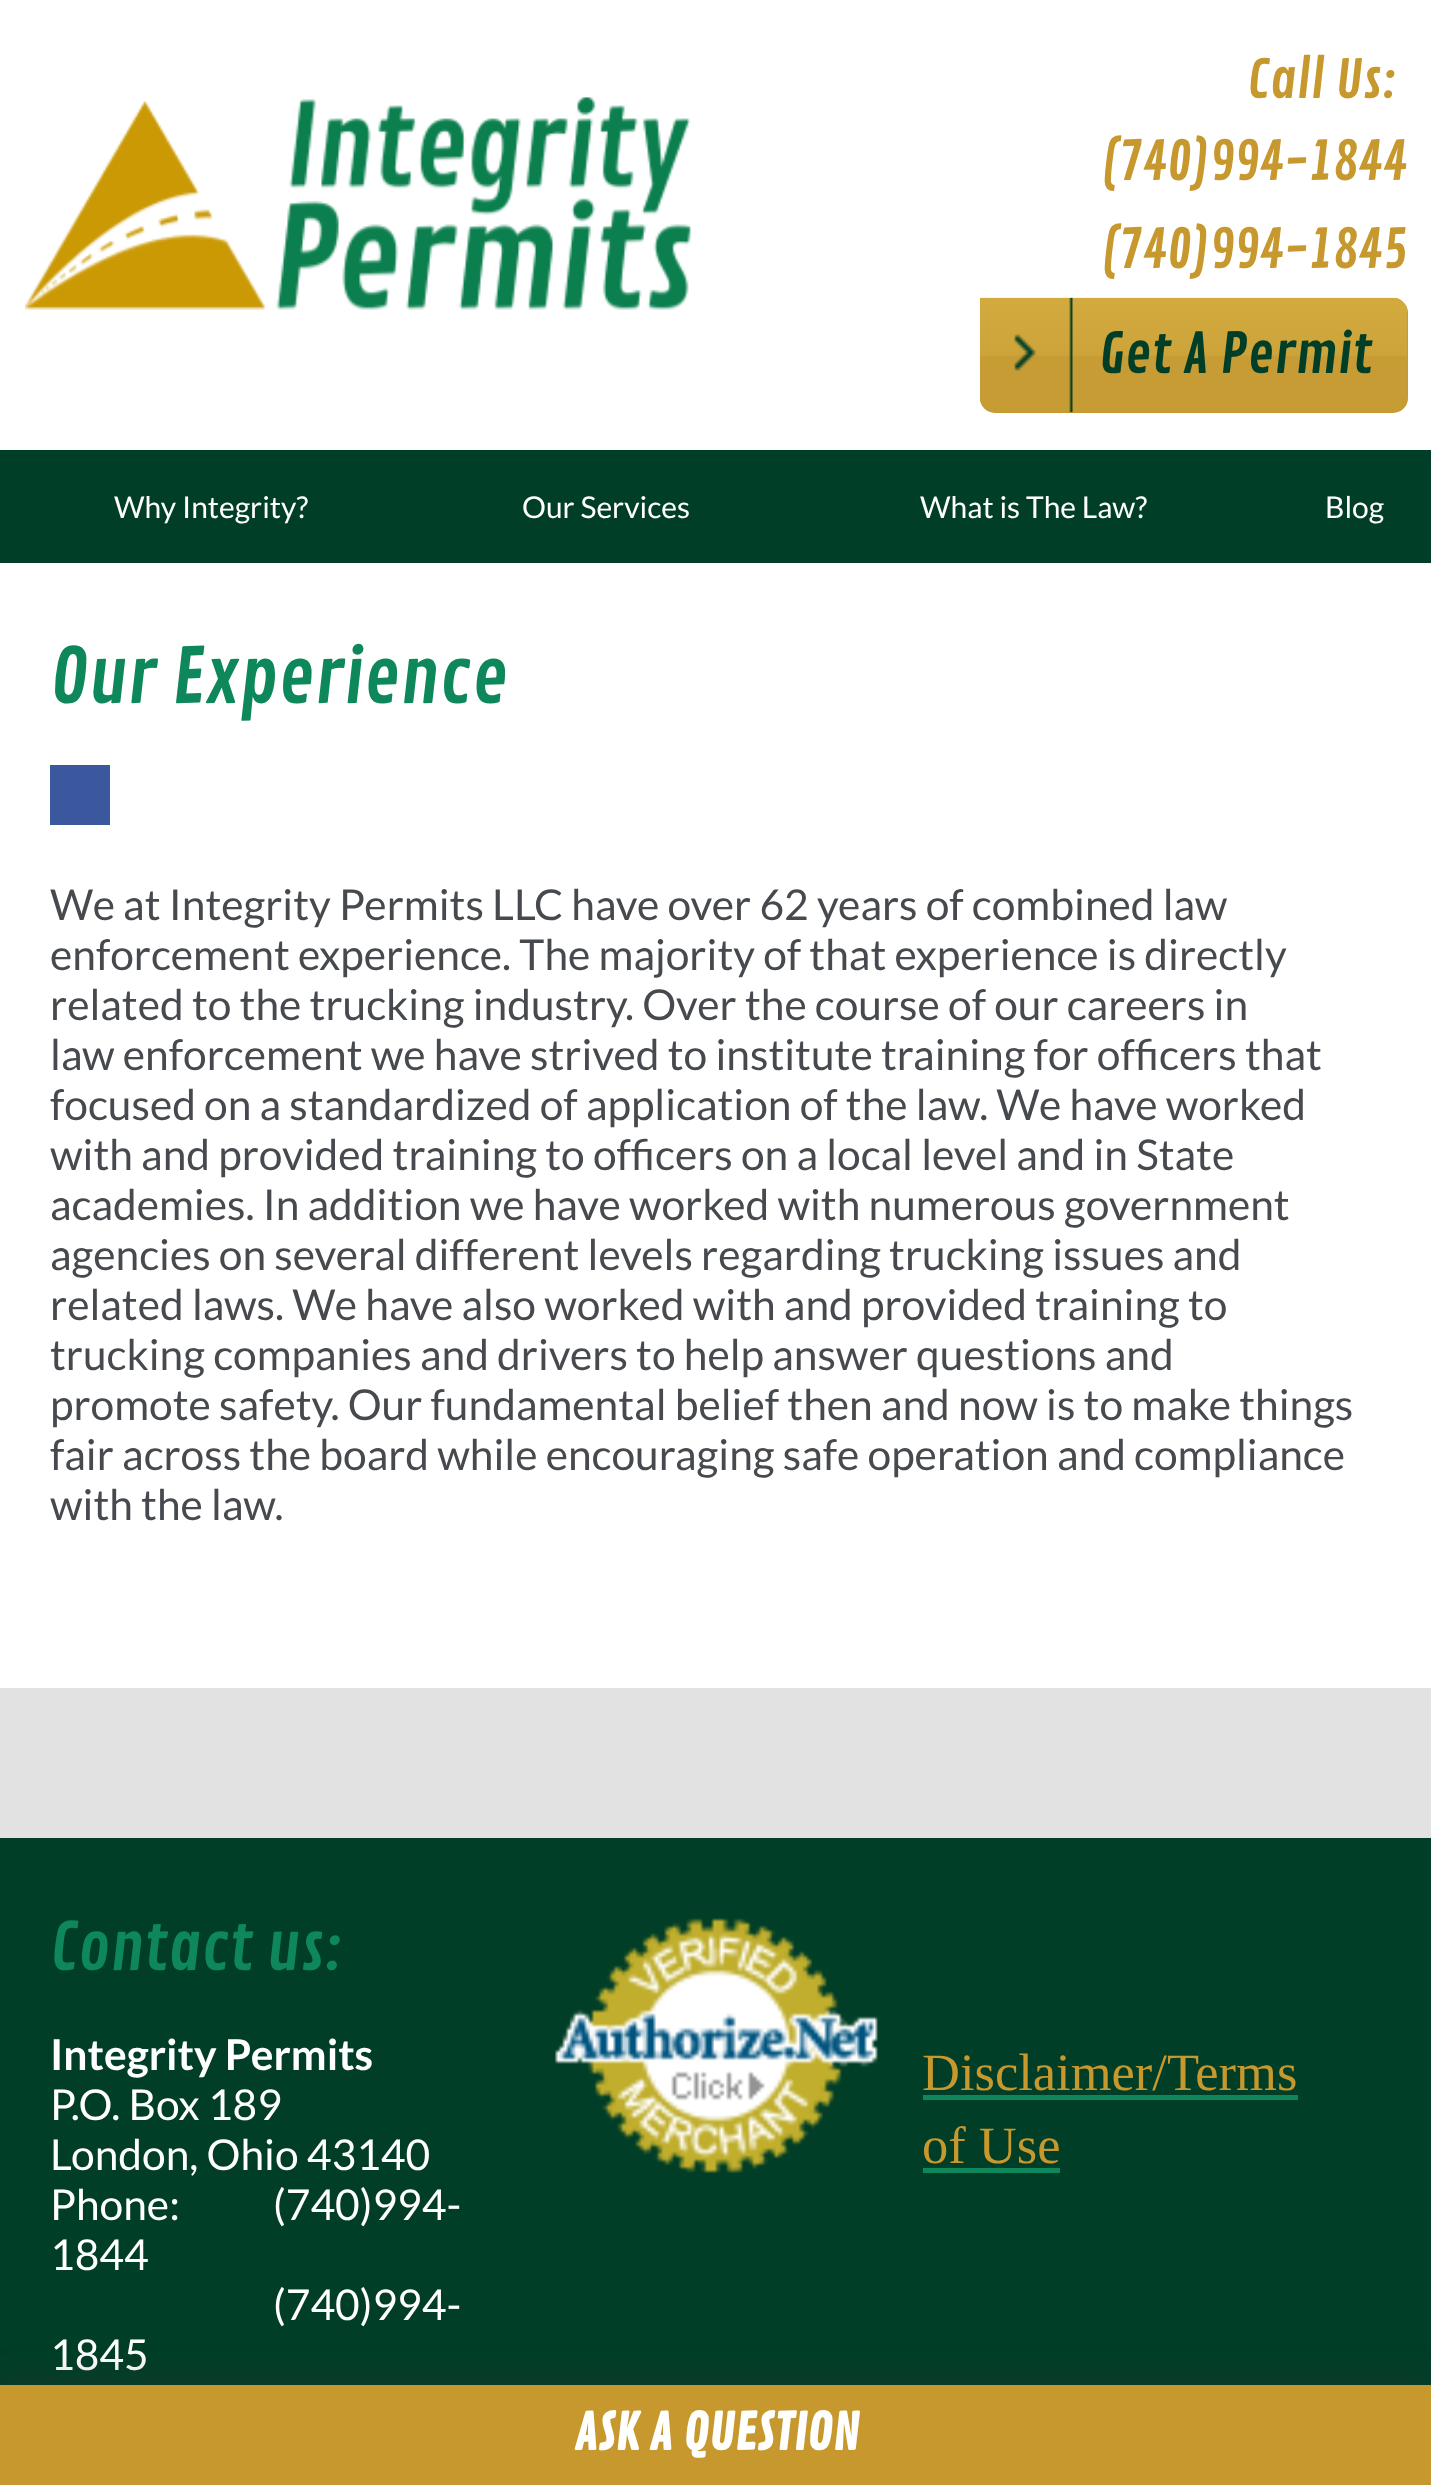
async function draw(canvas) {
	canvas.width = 1431;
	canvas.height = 2485;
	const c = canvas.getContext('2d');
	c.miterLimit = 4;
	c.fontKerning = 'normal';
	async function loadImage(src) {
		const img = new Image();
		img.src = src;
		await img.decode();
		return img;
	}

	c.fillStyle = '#fff';
	c.fillRect(0, 0, 1431, 2485);
	c.drawImage(await loadImage('img1.png'), 25, 97, 666, 213);
	c.font = '52.5px Contrail One';
	c.fillStyle = '#c6982d';
	for (const [text, x, y] of [
		['Call Us:', 1247, 98],
		['(740)994-1844', 1100, 180],
		['(740)994-1845', 1100, 268],
	]) {
		c.fillText(text, x, y);
	}
	c.beginPath();
	c.roundRect(980, 298, 428, 115, [0, 15, 15, 15]);
	c.fill();
	c.drawImage(await loadImage('img2.png'), 980, 297, 428, 116);
	c.font = '55px Contrail One';
	c.fillStyle = '#003e27';
	c.fillText('Get A Permit', 1099, 373);
	c.fillRect(0, 450, 1431, 113);
	c.font = '30px Lato';
	c.fillStyle = '#fff';
	for (const [text, x, y] of [
		['Why Integrity?', 114, 518],
		['Our Services', 522, 518],
		['What is The Law?', 920, 518],
		['Blog', 1325, 518],
	]) {
		c.fillText(text, x, y);
	}
	c.font = '75px Contrail One';
	c.fillStyle = '#0e875b';
	c.fillText('Our Experience', 50, 703);
	c.fillStyle = '#3b579d';
	c.fillRect(50, 765, 60, 60);
	c.font = '42.5px Lato';
	c.fillStyle = '#464a4e';
	for (const [text, x, y] of [
		['We at Integrity Permits LLC have over 62 years of combined law', 50, 920],
		['enforcement experience. The majority of that experience is directly', 50, 970],
		['related to the trucking industry. Over the course of our careers in', 50, 1020],
		['law enforcement we have strived to institute training for officers that', 50, 1070],
		['focused on a standardized of application of the law. We have worked', 50, 1120],
		['with and provided training to officers on a local level and in State', 50, 1170],
		['academies. In addition we have worked with numerous government', 50, 1220],
		['agencies on several different levels regarding trucking issues and', 50, 1270],
		['related laws. We have also worked with and provided training to', 50, 1320],
		['trucking companies and drivers to help answer questions and', 50, 1370],
		['promote safety. Our fundamental belief then and now is to make things', 50, 1420],
		['fair across the board while encouraging safe operation and compliance', 50, 1470],
		['with the law.', 50, 1520],
	]) {
		c.fillText(text, x, y);
	}
	c.fillStyle = '#e2e2e2';
	c.fillRect(0, 1688, 1431, 150);
	c.fillStyle = '#003e27';
	c.fillRect(0, 1838, 1431, 547);
	c.font = '65px Contrail One';
	c.fillStyle = '#0e875b';
	c.fillText('Contact us:', 50, 1970);
	c.font = 'bold 42.5px Lato';
	c.fillStyle = '#fff';
	c.fillText('Integrity Permits', 50, 2070);
	c.font = '42.5px Lato';
	for (const [text, x, y] of [
		['P.O. Box 189', 50, 2120],
		['London, Ohio 43140', 50, 2170],
		['Phone:', 50, 2220],
		['(740)994-', 273, 2220],
		['1844', 50, 2270],
		['(740)994-', 273, 2320],
		['1845', 50, 2370],
	]) {
		c.fillText(text, x, y);
	}
	c.drawImage(await loadImage('img3.png'), 555, 1918, 323, 256);
	c.font = '52.5px Liberation Serif';
	c.fillStyle = '#c6982d';
	c.fillText('Disclaimer/Terms', 922, 2090);
	c.fillStyle = '#0e875b';
	c.fillRect(923, 2095, 375, 5);
	c.fillStyle = '#c6982d';
	c.fillText('of Use', 922, 2163);
	c.fillStyle = '#0e875b';
	c.fillRect(923, 2168, 137, 5);
	c.fillStyle = '#3232324d';
	c.filter = 'blur(15px)';
	c.beginPath();
	c.rect(0, 2378, 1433, 100);
	c.fill();
	c.filter = 'none';
	c.fillStyle = '#c6982d';
	c.fillRect(0, 2385, 1431, 100);
	c.font = 'bold 50px Contrail One';
	c.fillStyle = '#fff';
	c.fillText('ASK A QUESTION', 574, 2450);
}

draw(document.querySelector('canvas'));
